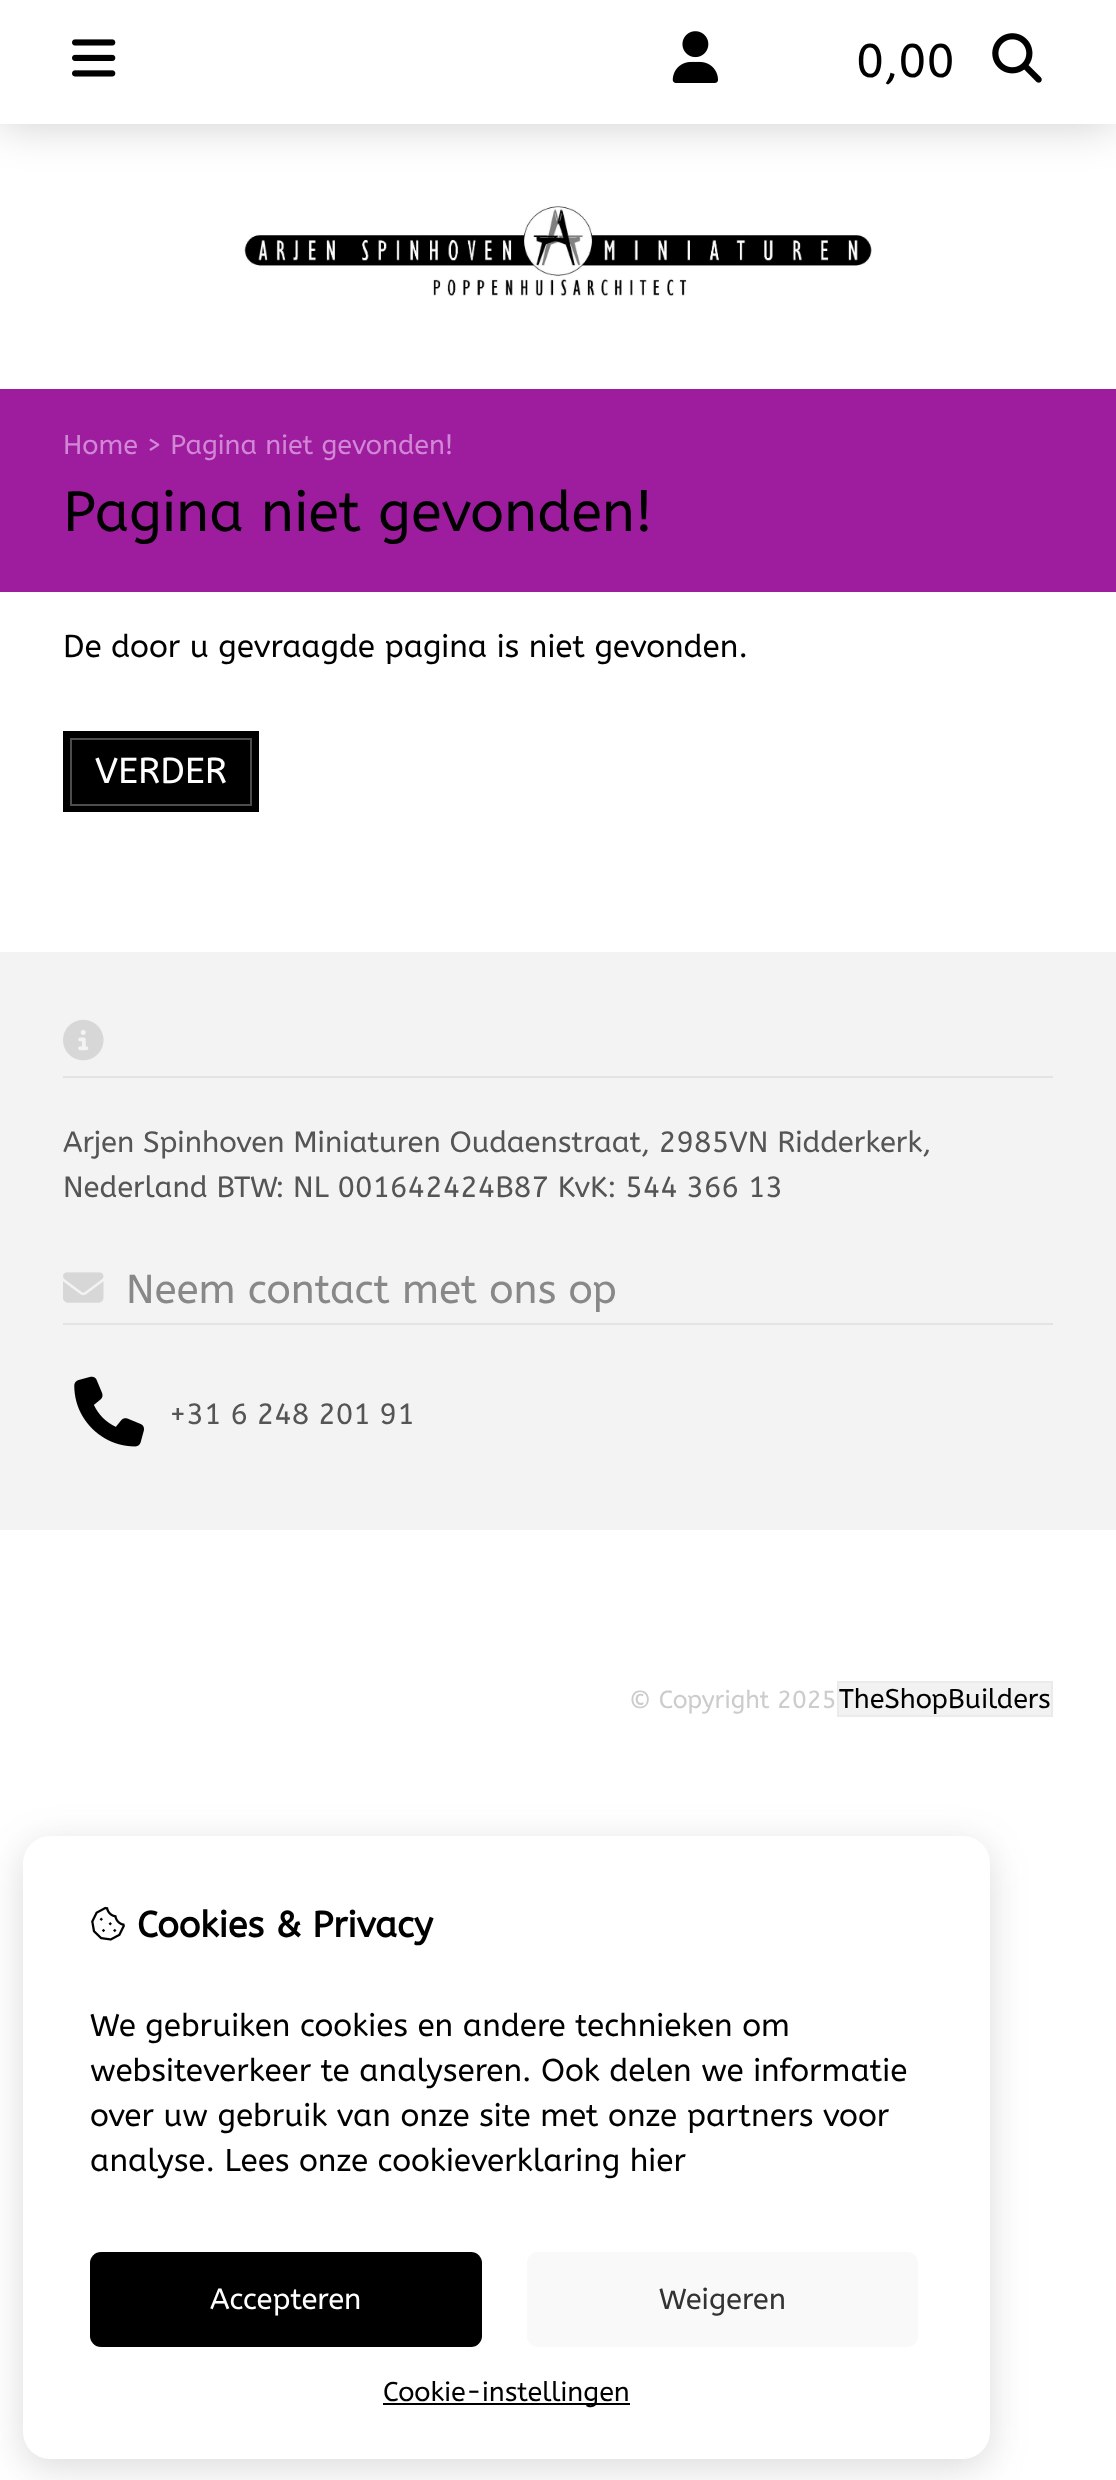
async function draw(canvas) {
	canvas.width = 1116;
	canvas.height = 2480;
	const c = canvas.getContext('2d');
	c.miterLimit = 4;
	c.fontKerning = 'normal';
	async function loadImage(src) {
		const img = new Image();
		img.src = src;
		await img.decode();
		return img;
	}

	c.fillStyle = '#fff';
	c.fillRect(0, 0, 1116, 2480);
	c.fillStyle = '#00000033';
	c.filter = 'blur(22.5px)';
	c.beginPath();
	c.rect(0, 0, 1116, 124);
	c.fill();
	c.filter = 'none';
	c.fillStyle = '#fff';
	c.fillRect(0, 0, 1116, 124);
	c.drawImage(await loadImage('img1.png'), 72, 39, 44, 38);
	c.drawImage(await loadImage('img2.png'), 672, 31, 46, 52);
	c.font = '47px ABeeZee';
	c.fillStyle = '#000';
	c.fillText('0,00', 856, 77);
	c.drawImage(await loadImage('img3.png'), 992, 33, 50, 50);
	c.drawImage(await loadImage('img4.png'), 244, 206, 628, 90);
	c.fillStyle = '#9e1d9e';
	c.fillRect(0, 389, 1116, 203);
	c.font = '27px ABeeZee';
	c.fillStyle = '#d287d6';
	c.fillText('Home > Pagina niet gevonden!', 63, 454);
	c.font = '56.25px ABeeZee';
	c.fillStyle = '#000';
	c.fillText('Pagina niet gevonden!', 63, 531);
	c.font = '31.5px ABeeZee';
	c.fillText('De door u gevraagde pagina is niet gevonden.', 63, 657);
	c.fillRect(63, 731, 196, 81);
	c.strokeStyle = '#4d4d4d';
	c.lineWidth = 2;
	c.strokeRect(71, 739, 180, 66);
	c.font = '36px ABeeZee';
	c.fillStyle = '#fff';
	c.fillText('VERDER', 95, 783);
	c.fillStyle = '#f3f3f3';
	c.fillRect(0, 952, 1116, 578);
	c.fillStyle = '#e3e3e3';
	c.fillRect(63, 1076, 990, 2);
	c.drawImage(await loadImage('img5.png'), 63, 1019, 41, 42);
	c.font = '29.25px ABeeZee';
	c.fillStyle = '#555';
	c.fillText('Arjen Spinhoven Miniaturen Oudaenstraat, 2985VN Ridderkerk,', 63, 1152);
	c.fillText('Nederland BTW: NL 001642424B87 KvK: 544 366 13', 63, 1197);
	c.fillStyle = '#e3e3e3';
	c.fillRect(63, 1323, 990, 2);
	c.drawImage(await loadImage('img6.png'), 63, 1272, 41, 31);
	c.font = '40.5px ABeeZee';
	c.fillStyle = '#888';
	c.fillText('Neem contact met ons op', 126, 1303);
	c.drawImage(await loadImage('img7.png'), 74, 1376, 70, 71);
	c.font = '29.25px ABeeZee';
	c.fillStyle = '#555';
	c.fillText('+31 6 248 201 91', 169, 1424);
	c.font = '24.75px ABeeZee';
	c.fillStyle = '#ccc';
	c.fillText('© Copyright 2025', 629, 1708);
	c.fillStyle = '#f2f2f2';
	c.beginPath();
	c.rect(838, 1682, 214, 34);
	c.fill();
	c.strokeStyle = '#ebebeb';
	c.stroke();
	c.font = '27px ABeeZee';
	c.fillStyle = '#000';
	c.fillText('TheShopBuilders', 839, 1708);
	c.fillStyle = '#4c4c4c33';
	c.filter = 'blur(19px)';
	c.beginPath();
	c.roundRect(23, 1845, 967, 623, 27);
	c.fill();
	c.filter = 'none';
	c.fillStyle = '#fff';
	c.beginPath();
	c.roundRect(23, 1836, 967, 623, 27);
	c.fill();
	c.drawImage(await loadImage('img8.png'), 91, 1906, 34, 35);
	c.font = 'bold 36px ABeeZee';
	c.fillStyle = '#000';
	c.fillText('Cookies & Privacy', 137, 1937);
	c.font = '31.5px ABeeZee';
	for (const [text, x, y] of [
		['We gebruiken cookies en andere technieken om', 90, 2036],
		['websiteverkeer te analyseren. Ook delen we informatie', 90, 2081],
		['over uw gebruik van onze site met onze partners voor', 90, 2126],
		['analyse. Lees onze cookieverklaring hier', 90, 2171],
	]) {
		c.fillText(text, x, y);
	}
	c.beginPath();
	c.roundRect(90, 2252, 392, 95, 11);
	c.fill();
	c.font = '29.25px ABeeZee';
	c.fillStyle = '#fff';
	c.fillText('Accepteren', 210, 2309);
	c.fillStyle = '#f9f9f9';
	c.beginPath();
	c.roundRect(527, 2252, 391, 95, 11);
	c.fill();
	c.fillStyle = '#333';
	c.fillText('Weigeren', 659, 2309);
	c.fillStyle = '#000';
	c.fillRect(383, 2403, 247, 2);
	c.font = '27px ABeeZee';
	c.fillText('Cookie-instellingen', 383, 2401);
}

draw(document.querySelector('canvas'));
